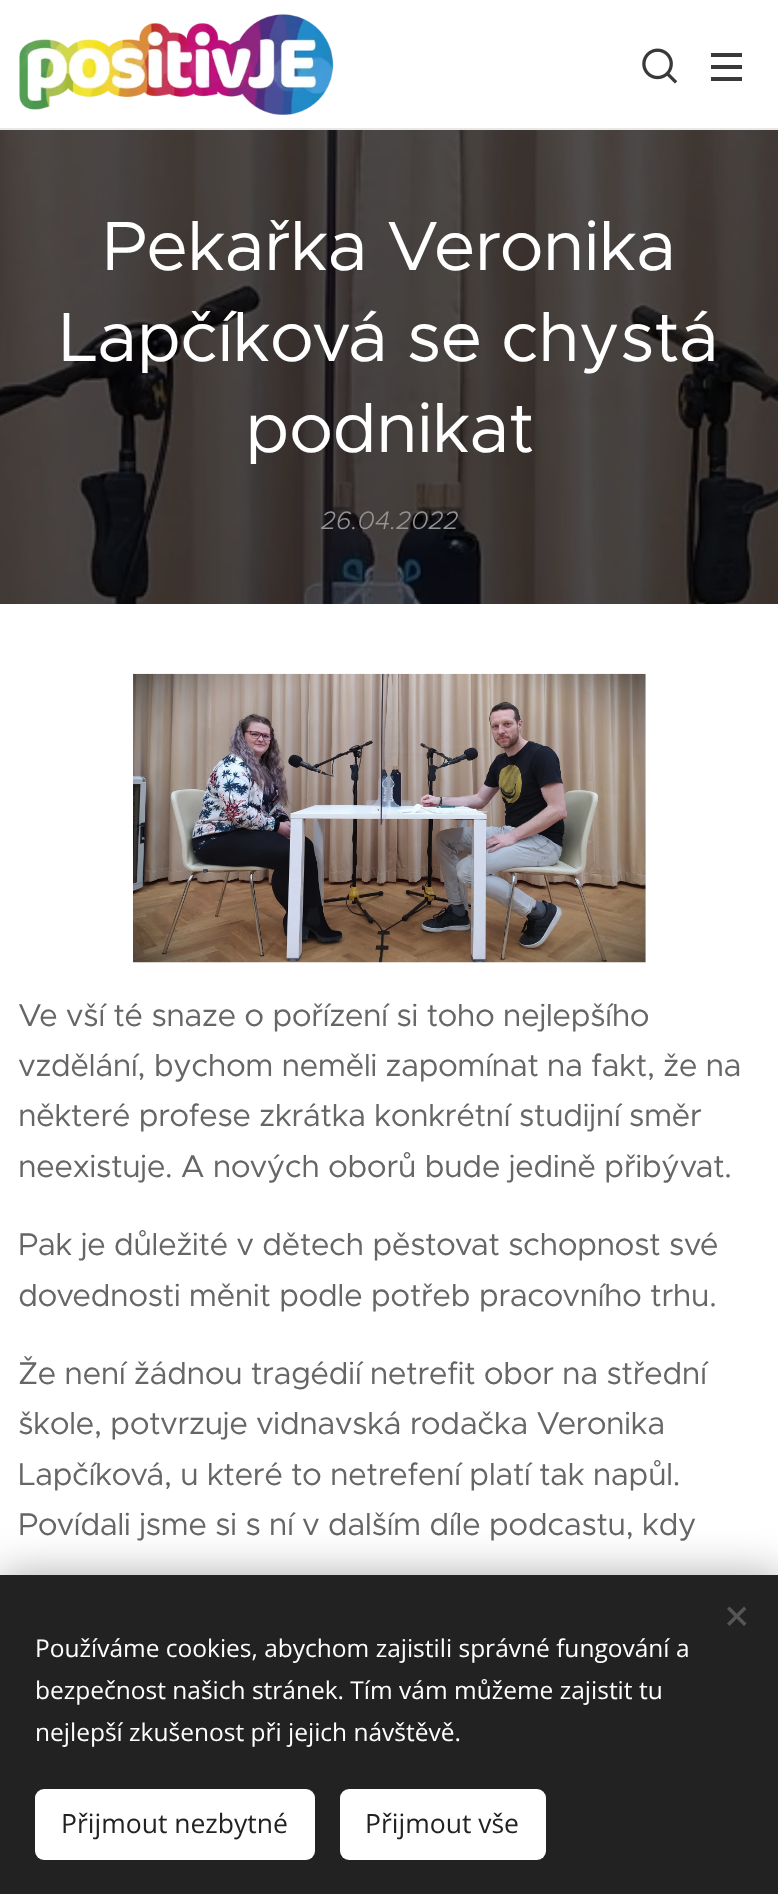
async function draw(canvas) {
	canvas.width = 778;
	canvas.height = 1894;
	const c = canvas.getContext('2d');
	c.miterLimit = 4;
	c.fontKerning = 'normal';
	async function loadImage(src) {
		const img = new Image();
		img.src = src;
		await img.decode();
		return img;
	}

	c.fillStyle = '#fff';
	c.fillRect(0, 0, 778, 1894);
	c.drawImage(await loadImage('img1.png'), 19, 14, 315, 101);
	c.drawImage(await loadImage('img2.png'), 642, 48, 36, 36);
	for (const [x, y, w, h, color] of [
		[711, 65, 31, 4, '#393939'],
		[711, 53, 31, 4, '#393939'],
		[711, 77, 31, 4, '#393939'],
		[0, 128, 778, 2, '#e8e8e8'],
	]) {
		c.fillStyle = color;
		c.fillRect(x, y, w, h);
	}
	c.drawImage(await loadImage('img3.png'), 0, 130, 778, 474);
	c.letterSpacing = '-0.75px';
	c.font = '70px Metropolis';
	c.fillStyle = '#fff';
	for (const [text, x, y] of [
		['Pekařka Veronika', 102, 270],
		['Lapčíková se chystá', 59, 361],
		['podnikat', 245, 452],
	]) {
		c.fillText(text, x, y);
	}
	c.letterSpacing = '0px';
	c.font = 'italic 300 25.5px Metropolis';
	c.fillStyle = '#949293';
	c.fillText('26.04.2022', 321, 529);
	c.drawImage(await loadImage('img4.png'), 133, 673, 513, 290);
	c.letterSpacing = '-0.55px';
	c.font = '31.5px Metropolis';
	c.fillStyle = '#666';
	for (const [text, x, y] of [
		['Ve vší té snaze o pořízení si toho nejlepšího', 18, 1026],
		['vzdělání, bychom neměli zapomínat na fakt, že na', 18, 1076],
		['některé profese zkrátka konkrétní studijní směr', 18, 1126],
		['neexistuje. A nových oborů bude jedině přibývat.', 18, 1177],
		['Pak je důležité v dětech pěstovat schopnost své', 18, 1255],
		['dovednosti měnit podle potřeb pracovního trhu.', 18, 1306],
		['Že není žádnou tragédií netrefit obor na střední', 18, 1384],
		['škole, potvrzuje vidnavská rodačka Veronika', 18, 1434],
		['Lapčíková, u které to netrefení platí tak napůl.', 18, 1485],
		['Povídali jsme si s ní v dalším díle podcastu, kdy', 18, 1535],
	]) {
		c.fillText(text, x, y);
	}
	c.fillStyle = '#00000054';
	c.filter = 'blur(22px)';
	c.beginPath();
	c.rect(0, 1575, 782, 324);
	c.fill();
	c.filter = 'none';
	c.fillStyle = '#222';
	c.fillRect(0, 1575, 778, 319);
	c.fillStyle = '#555';
	c.beginPath();
	c.moveTo(727, 1623.5);
	c.lineTo(744, 1606.5);
	c.lineTo(746.5, 1609);
	c.lineTo(729.5, 1626);
	c.closePath();
	c.fill();
	c.beginPath();
	c.moveTo(729.5, 1606.5);
	c.lineTo(746.5, 1623.5);
	c.lineTo(744, 1626);
	c.lineTo(727, 1609);
	c.closePath();
	c.fill();
	c.letterSpacing = '0px';
	c.font = '24.5px Open Sans';
	c.fillStyle = '#fff';
	for (const [text, x, y] of [
		['Používáme cookies, abychom zajistili správné fungování a', 35, 1657],
		['bezpečnost našich stránek. Tím vám můžeme zajistit tu', 35, 1699],
		['nejlepší zkušenost při jejich návštěvě.', 35, 1741],
	]) {
		c.fillText(text, x, y);
	}
	c.beginPath();
	c.roundRect(35, 1789, 280, 71, 9);
	c.fill();
	c.font = '26.5px Open Sans';
	c.fillStyle = '#222';
	c.fillText('Přijmout nezbytné', 61, 1833);
	c.fillStyle = '#fff';
	c.beginPath();
	c.roundRect(340, 1789, 206, 71, 9);
	c.fill();
	c.fillStyle = '#222';
	c.fillText('Přijmout vše', 365, 1833);
}

draw(document.querySelector('canvas'));
